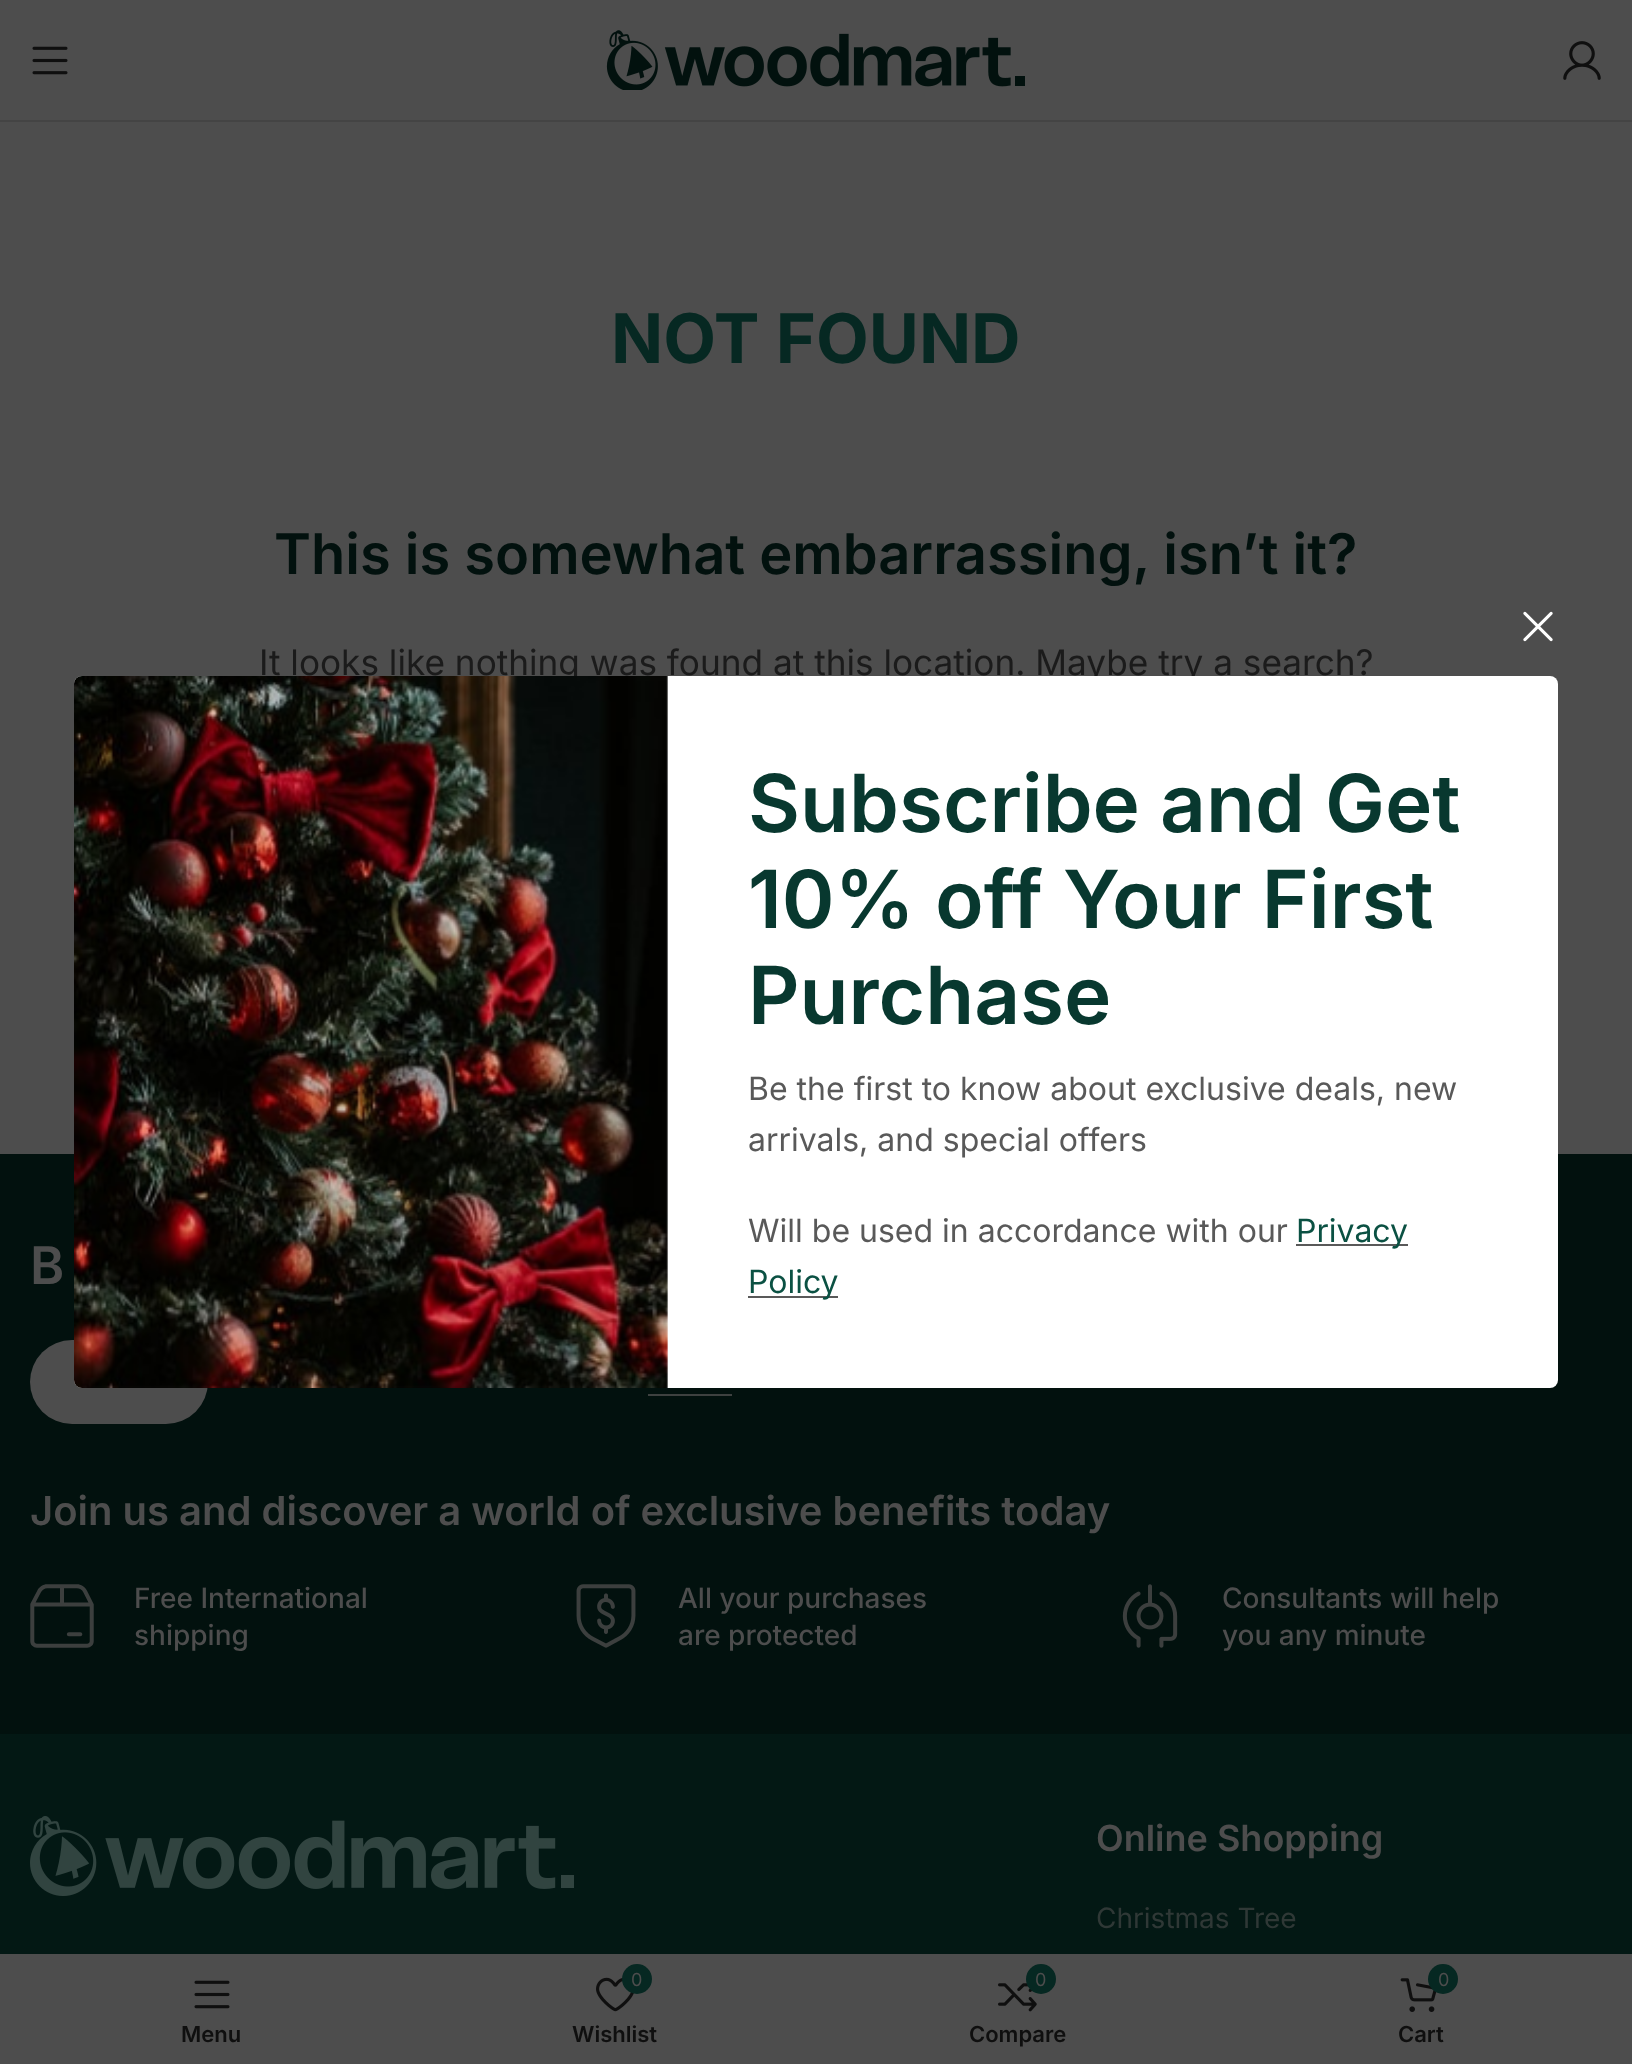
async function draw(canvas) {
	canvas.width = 1632;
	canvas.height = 2064;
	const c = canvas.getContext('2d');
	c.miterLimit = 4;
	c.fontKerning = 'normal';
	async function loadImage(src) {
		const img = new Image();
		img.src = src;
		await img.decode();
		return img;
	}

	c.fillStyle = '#4d4d4d';
	c.fillRect(0, 0, 1632, 2064);
	c.fillStyle = '#444';
	c.fillRect(0, 120, 1632, 2);
	c.drawImage(await loadImage('img1.png'), 32, 46, 36, 29);
	c.drawImage(await loadImage('img2.png'), 606, 30, 419, 60);
	c.drawImage(await loadImage('img3.png'), 1563, 41, 38, 39);
	c.font = 'bold 68.5px Inter';
	c.fillStyle = '#062822';
	c.fillText('NOT FOUND', 611, 363);
	c.font = '600 56px Inter';
	c.fillStyle = '#02110e';
	c.fillText('This is somewhat embarrassing, isn’t it?', 274, 574);
	c.font = '35.2px Inter';
	c.fillStyle = '#1b1b1b';
	c.fillText('It looks like nothing was found at this location. Maybe try a search?', 259, 675);
	c.fillStyle = '#031814';
	c.fillRect(0, 1734, 1632, 220);
	c.fillStyle = '#02110e';
	c.fillRect(0, 1154, 1632, 580);
	c.font = '600 52px Inter';
	c.fillStyle = '#4d4d4d';
	c.fillText('B', 30, 1284);
	c.beginPath();
	c.roundRect(30, 1340, 178, 84, 42);
	c.fill();
	c.fillStyle = '#3e4140';
	c.fillRect(648, 1394, 84, 2);
	c.font = '600 40px Inter';
	c.fillStyle = '#4d4d4d';
	c.fillText('Join us and discover a world of exclusive benefits today', 30, 1525);
	c.drawImage(await loadImage('img4.png'), 30, 1584, 64, 64);
	c.font = '500 28px Inter';
	c.fillText('Free International', 134, 1608);
	c.fillText('shipping', 134, 1645);
	c.drawImage(await loadImage('img5.png'), 576, 1584, 60, 64);
	c.fillText('All your purchases', 678, 1608);
	c.fillText('are protected', 678, 1645);
	c.drawImage(await loadImage('img6.png'), 1122, 1584, 56, 64);
	c.fillText('Consultants will help', 1222, 1608);
	c.fillText('you any minute', 1222, 1645);
	c.drawImage(await loadImage('img7.png'), 30, 1816, 544, 80);
	c.font = '600 36px Inter';
	c.fillText('Online Shopping', 1096, 1851);
	c.font = '28px Inter';
	c.fillStyle = '#2f3836';
	c.fillText('Christmas Tree', 1096, 1928);
	c.drawImage(await loadImage('img8.png'), 1523, 611, 30, 31);
	c.fillStyle = '#fff';
	c.beginPath();
	c.roundRect(74, 676, 1484, 712, 8);
	c.fill();
	c.drawImage(await loadImage('img9.png'), 74, 676, 594, 712);
	c.font = '600 80px Inter';
	c.fillStyle = '#08382f';
	for (const [text, x, y] of [
		['Subscribe and Get', 748, 832],
		['10% off Your First', 748, 928],
		['Purchase', 748, 1024],
	]) {
		c.fillText(text, x, y);
	}
	c.font = '32px Inter';
	c.fillStyle = '#595959';
	for (const [text, x, y] of [
		['Be the first to know about exclusive deals, new', 748, 1100],
		['arrivals, and special offers', 748, 1151],
		['Will be used in accordance with our', 748, 1242],
	]) {
		c.fillText(text, x, y);
	}
	c.fillRect(1296, 1244, 112, 2);
	c.fillStyle = '#0b5143';
	c.fillText('Privacy', 1296, 1242);
	c.fillStyle = '#595959';
	c.fillRect(748, 1296, 90, 2);
	c.fillStyle = '#0b5143';
	c.fillText('Policy', 748, 1293);
	c.drawImage(await loadImage('img1.png'), 194, 1980, 36, 29);
	c.font = '600 22px Inter';
	c.fillStyle = '#0f0f0f';
	c.fillText('Menu', 181, 2042);
	c.drawImage(await loadImage('img10.png'), 596, 1977, 38, 35);
	c.fillStyle = '#062822';
	c.beginPath();
	c.arc(637, 1979, 15, 0, 2 * Math.PI);
	c.fill();
	c.font = '18px Inter';
	c.fillStyle = '#4d4d4d';
	c.fillText('0', 631, 1986);
	c.font = '600 22px Inter';
	c.fillStyle = '#0f0f0f';
	c.fillText('Wishlist', 572, 2042);
	c.drawImage(await loadImage('img11.png'), 998, 1983, 39, 29);
	c.fillStyle = '#062822';
	c.beginPath();
	c.arc(1041, 1979, 15, 0, 2 * Math.PI);
	c.fill();
	c.font = '18px Inter';
	c.fillStyle = '#4d4d4d';
	c.fillText('0', 1035, 1986);
	c.font = '600 22px Inter';
	c.fillStyle = '#0f0f0f';
	c.fillText('Compare', 969, 2042);
	c.drawImage(await loadImage('img12.png'), 1400, 1978, 37, 34);
	c.fillStyle = '#062822';
	c.beginPath();
	c.arc(1443, 1979, 15, 0, 2 * Math.PI);
	c.fill();
	c.font = '18px Inter';
	c.fillStyle = '#4d4d4d';
	c.fillText('0', 1438, 1986);
	c.font = '600 22px Inter';
	c.fillStyle = '#0f0f0f';
	c.fillText('Cart', 1398, 2042);
}

draw(document.querySelector('canvas'));
